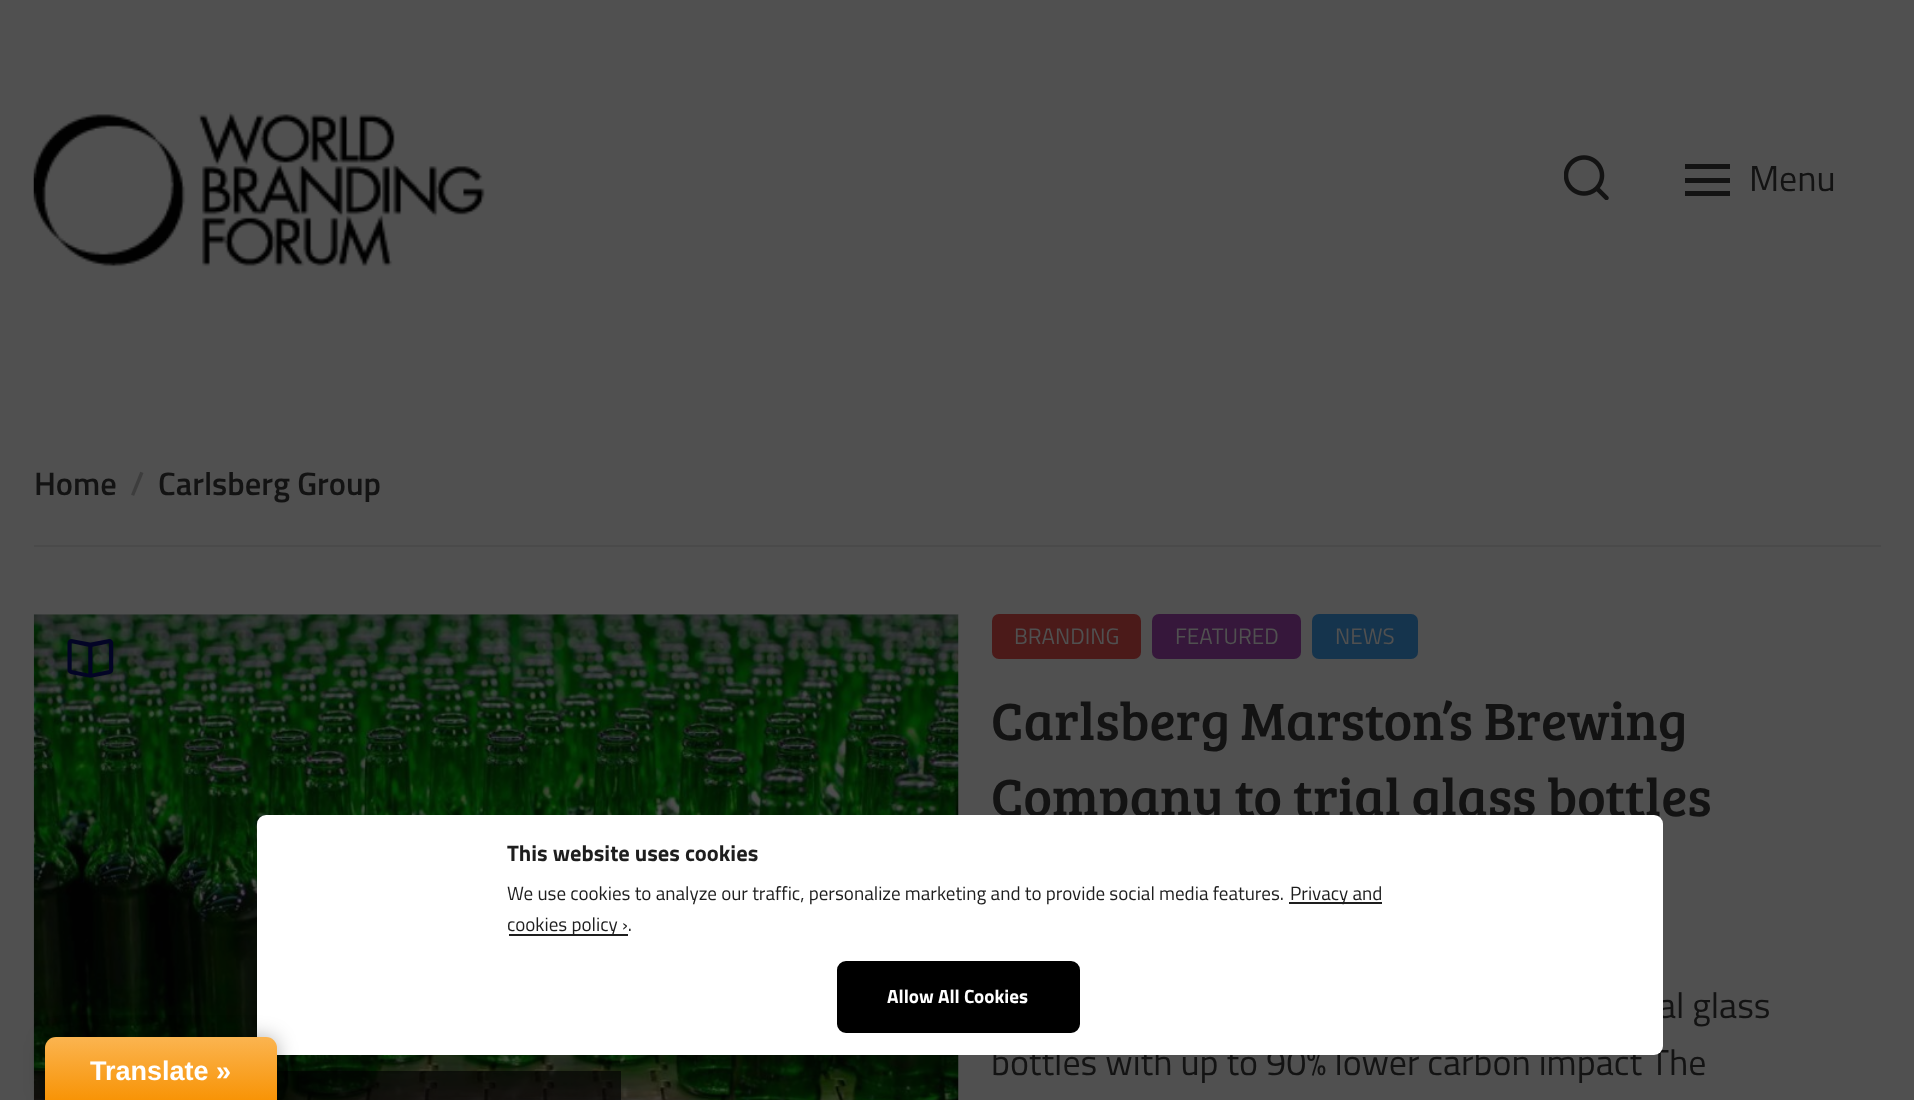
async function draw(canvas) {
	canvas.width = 1914;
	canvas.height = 1100;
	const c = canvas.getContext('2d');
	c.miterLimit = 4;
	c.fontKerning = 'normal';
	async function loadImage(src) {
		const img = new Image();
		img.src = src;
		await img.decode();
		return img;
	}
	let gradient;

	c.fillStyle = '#505050';
	c.fillRect(0, 0, 1914, 1100);
	c.drawImage(await loadImage('img1.png'), 33, 112, 452, 155);
	c.drawImage(await loadImage('img2.png'), 1564, 155, 45, 45);
	for (const [x, y, w, h, color] of [
		[1685, 164, 45, 5, '#131313'],
		[1685, 178, 45, 5, '#131313'],
		[1685, 191, 45, 5, '#131313'],
	]) {
		c.fillStyle = color;
		c.fillRect(x, y, w, h);
	}
	c.font = '36px Titillium Web';
	c.fillText('Menu', 1749, 191);
	c.fillStyle = '#4a4a4a';
	c.fillRect(34, 545, 1847, 2);
	c.font = '600 32.5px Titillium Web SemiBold';
	c.fillStyle = '#131313';
	c.fillText('Home', 34, 495);
	c.fillStyle = '#3d3d3d';
	c.fillText('/', 130, 495);
	c.fillStyle = '#131313';
	c.fillText('Carlsberg Group', 158, 495);
	c.drawImage(await loadImage('img3.png'), 33, 614, 926, 486);
	c.drawImage(await loadImage('img4.png'), 67, 639, 47, 39);
	c.fillStyle = '#010101a1';
	c.fillRect(34, 1071, 587, 29);
	c.fillStyle = '#4b1a19';
	c.beginPath();
	c.roundRect(992, 614, 149, 45, 7);
	c.fill();
	c.font = '22.5px Titillium Web';
	c.fillStyle = '#505050';
	c.fillText('BRANDING', 1014, 644);
	c.fillStyle = '#36173b';
	c.beginPath();
	c.roundRect(1152, 614, 149, 45, 7);
	c.fill();
	c.fillStyle = '#505050';
	c.fillText('FEATURED', 1175, 644);
	c.fillStyle = '#15344d';
	c.beginPath();
	c.roundRect(1312, 614, 106, 45, 7);
	c.fill();
	c.fillStyle = '#505050';
	c.fillText('NEWS', 1335, 644);
	c.font = '54px Bree Serif';
	c.fillStyle = '#131313';
	c.fillText('Carlsberg Marston’s Brewing', 991, 740);
	c.fillText('Company to trial glass bottles', 991, 816);
	c.font = '36px Titillium Web';
	c.fillText('al glass', 1658, 1018);
	c.fillText('bottles with up to 90% lower carbon impact The', 991, 1075);
	c.fillStyle = '#fff';
	c.beginPath();
	c.roundRect(257, 815, 1406, 240, 9);
	c.fill();
	c.font = 'bold 22.5px Titillium Web';
	c.fillStyle = '#1e1e1e';
	c.fillText('This website uses cookies', 507, 861);
	c.font = '19.1px Titillium Web';
	c.fillText('We use cookies to analyze our traffic, personalize marketing and to provide social media features.', 507, 900);
	c.fillRect(1289, 902, 93, 2);
	c.fillText('Privacy and', 1290, 900);
	c.fillRect(509, 934, 119, 2);
	c.fillText('cookies policy ›.', 507, 931);
	c.fillStyle = '#000';
	c.beginPath();
	c.roundRect(838, 962, 241, 70, 8);
	c.fill();
	c.strokeStyle = '#000';
	c.lineWidth = 2;
	c.stroke();
	c.font = 'bold 19.1px Titillium Web';
	c.fillStyle = '#fff';
	c.fillText('Allow All Cookies', 887, 1003);
	c.fillStyle = '#0000004d';
	c.filter = 'blur(10px)';
	c.beginPath();
	c.roundRect(45, 1037, 232, 63, 11);
	c.fill();
	c.filter = 'none';
	gradient = c.createLinearGradient(161, 1037, 161, 1100);
	gradient.addColorStop(0, '#fbb450');
	gradient.addColorStop(1, '#f89406');
	c.fillStyle = gradient;
	c.beginPath();
	c.roundRect(45, 1037, 232, 63, [11, 11, 0, 0]);
	c.fill();
	c.font = 'bold 27px Liberation Sans';
	c.fillStyle = '#fff';
	c.fillText('Translate »', 90, 1080);
}

draw(document.querySelector('canvas'));
